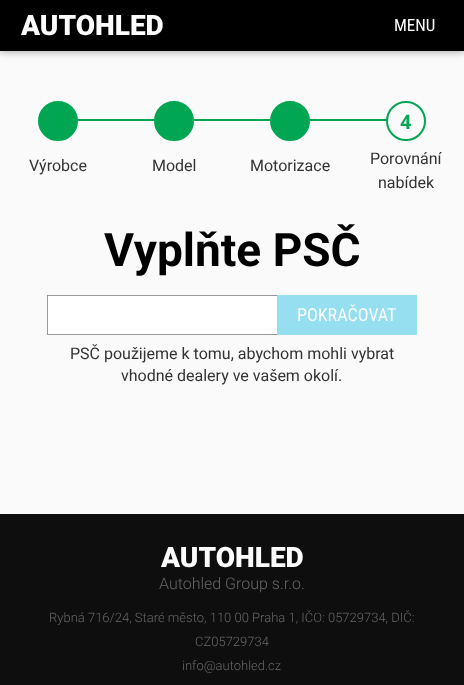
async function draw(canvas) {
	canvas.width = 464;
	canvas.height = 685;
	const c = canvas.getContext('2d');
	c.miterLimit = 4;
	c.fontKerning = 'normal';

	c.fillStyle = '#fafafa';
	c.fillRect(0, 0, 464, 685);
	c.fillStyle = '#00000066';
	c.filter = 'blur(4px)';
	c.beginPath();
	c.rect(0, -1, 464, 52);
	c.fill();
	c.filter = 'none';
	c.fillStyle = '#000';
	c.fillRect(0, 0, 464, 51);
	c.font = '900 28px Roboto';
	c.fillStyle = '#fcfcfc';
	c.fillText('AUTOHLED', 21, 35);
	c.font = '17px Roboto Condensed';
	c.fillText('MENU', 394, 31);
	c.fillStyle = '#00a652';
	c.fillRect(77, 119, 78, 2);
	c.beginPath();
	c.arc(58, 121, 19, 0, 2 * Math.PI);
	c.fill();
	c.strokeStyle = '#00a652';
	c.lineWidth = 2;
	c.stroke();
	c.font = '16px Roboto';
	c.fillStyle = '#333';
	c.fillText('Výrobce', 29, 171);
	c.fillStyle = '#00a652';
	c.fillRect(193, 119, 78, 2);
	c.beginPath();
	c.arc(174, 121, 19, 0, 2 * Math.PI);
	c.fill();
	c.stroke();
	c.fillStyle = '#333';
	c.fillText('Model', 152, 171);
	c.fillStyle = '#00a652';
	c.fillRect(309, 119, 78, 2);
	c.beginPath();
	c.arc(290, 121, 19, 0, 2 * Math.PI);
	c.fill();
	c.stroke();
	c.fillStyle = '#333';
	c.fillText('Motorizace', 250, 171);
	c.fillStyle = '#fafafa';
	c.beginPath();
	c.arc(406, 121, 19, 0, 2 * Math.PI);
	c.fill();
	c.stroke();
	c.font = 'bold 20px Roboto';
	c.fillStyle = '#00a652';
	c.fillText('4', 400, 129);
	c.font = '16px Roboto';
	c.fillStyle = '#333';
	c.fillText('Porovnání', 370, 164);
	c.fillText('nabídek', 378, 188);
	c.font = 'bold 46px Roboto';
	c.fillStyle = '#000';
	c.fillText('Vyplňte PSČ', 104, 266);
	for (const [x, y, w, h, color] of [
		[48, 296, 229, 38, '#fff'],
		[47, 295, 230, 1, '#999'],
		[47, 334, 230, 1, '#999'],
		[47, 295, 1, 40, '#999'],
		[277, 295, 140, 40, '#96dff0'],
	]) {
		c.fillStyle = color;
		c.fillRect(x, y, w, h);
	}
	c.font = '18px Roboto Condensed';
	c.fillStyle = '#fcfcfc';
	c.fillText('POKRAČOVAT', 297, 321);
	c.font = '16px Roboto';
	c.fillStyle = '#333';
	c.fillText('PSČ použijeme k tomu, abychom mohli vybrat', 70, 359);
	c.fillText('vhodné dealery ve vašem okolí.', 121, 381);
	c.fillStyle = '#0e0e0e';
	c.fillRect(0, 514, 464, 171);
	c.font = '900 28px Roboto';
	c.fillStyle = '#fcfcfc';
	c.fillText('AUTOHLED', 161, 567);
	c.font = '300 16px Roboto';
	c.fillStyle = '#666';
	c.fillText('Autohled Group s.r.o.', 159, 589);
	c.font = '300 13px Roboto';
	for (const [text, x, y] of [
		['Rybná 716/24, Staré město, 110 00 Praha 1, IČO: 05729734, DIČ:', 49, 622],
		['CZ05729734', 195, 646],
		['info@autohled.cz', 182, 670],
	]) {
		c.fillText(text, x, y);
	}
}

draw(document.querySelector('canvas'));
